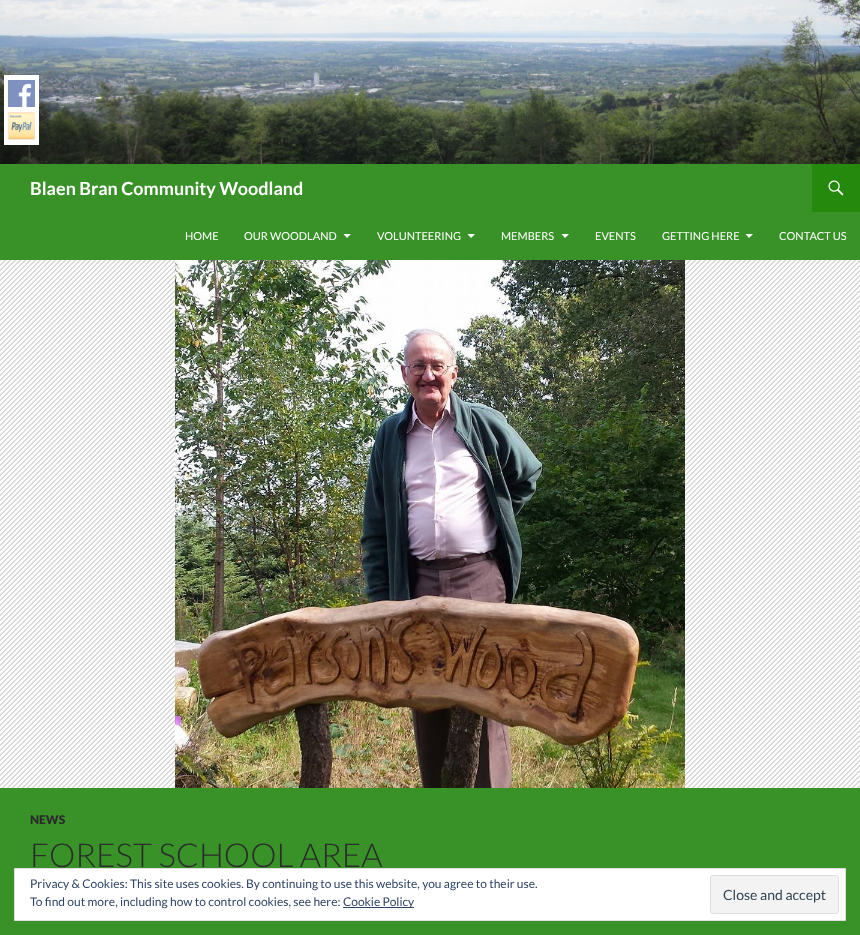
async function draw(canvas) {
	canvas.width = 860;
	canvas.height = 935;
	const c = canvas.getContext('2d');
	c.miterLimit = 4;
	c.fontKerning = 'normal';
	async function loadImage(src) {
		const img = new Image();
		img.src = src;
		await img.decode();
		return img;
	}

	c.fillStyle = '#399228';
	c.fillRect(0, 0, 860, 935);
	c.drawImage(await loadImage('img3.png'), 0, 0, 860, 164);
	c.fillStyle = '#fff';
	c.fillRect(4, 75, 35, 70);
	c.drawImage(await loadImage('img1.png'), 8, 80, 27, 27);
	c.drawImage(await loadImage('img2.png'), 8, 112, 27, 28);
	c.font = 'bold 18px Lato';
	c.fillText('Blaen Bran Community Woodland', 30, 195);
	c.fillStyle = '#24890d';
	c.fillRect(812, 164, 48, 48);
	c.drawImage(await loadImage('img4.png'), 828, 180, 16, 16);
	c.font = '11px Lato';
	c.fillStyle = '#fff';
	c.fillText('HOME', 185, 240);
	c.fillText('OUR WOODLAND', 244, 240);
	c.beginPath();
	c.moveTo(343.5, 234);
	c.lineTo(351, 234);
	c.lineTo(347, 238);
	c.closePath();
	c.fill();
	c.fillText('VOLUNTEERING', 377, 240);
	c.beginPath();
	c.moveTo(467.5, 234);
	c.lineTo(475, 234);
	c.lineTo(471, 238);
	c.closePath();
	c.fill();
	c.fillText('MEMBERS', 501, 240);
	c.beginPath();
	c.moveTo(561.5, 234);
	c.lineTo(569, 234);
	c.lineTo(565, 238);
	c.closePath();
	c.fill();
	c.fillText('EVENTS', 595, 240);
	c.fillText('GETTING HERE', 662, 240);
	c.beginPath();
	c.moveTo(745.5, 234);
	c.lineTo(753, 234);
	c.lineTo(749, 238);
	c.closePath();
	c.fill();
	c.fillText('CONTACT US', 779, 240);
	c.fillStyle = '#b2b2b2';
	c.fillRect(0, 260, 860, 528);
	c.drawImage(await loadImage('img5.png'), 0, 260, 860, 528);
	c.drawImage(await loadImage('img6.png'), 175, 260, 510, 528);
	c.font = '900 12px Lato';
	c.fillStyle = '#2b2b2b';
	c.fillText('NEWS', 30, 824);
	c.font = '300 33px Lato';
	c.fillText('FOREST SCHOOL AREA', 30, 867);
	c.fillStyle = '#fff';
	c.beginPath();
	c.rect(14.5, 868.5, 831, 52);
	c.fill();
	c.strokeStyle = '#dedede';
	c.stroke();
	c.font = '12px Lato';
	c.fillStyle = '#2e4467';
	c.fillText('Privacy & Cookies: This site uses cookies. By continuing to use this website, you agree to their use.', 30, 888);
	c.fillText('To find out more, including how to control cookies, see here:', 30, 906);
	c.fillRect(343, 907, 71, 1);
	c.fillText('Cookie Policy', 343, 906);
	c.fillStyle = '#f3f3f3';
	c.beginPath();
	c.roundRect(710.5, 875.5, 128, 38, 2.5);
	c.fill();
	c.stroke();
	c.font = '14px Lato';
	c.fillStyle = '#2e4453';
	c.fillText('Close and accept', 723, 900);
}

draw(document.querySelector('canvas'));
